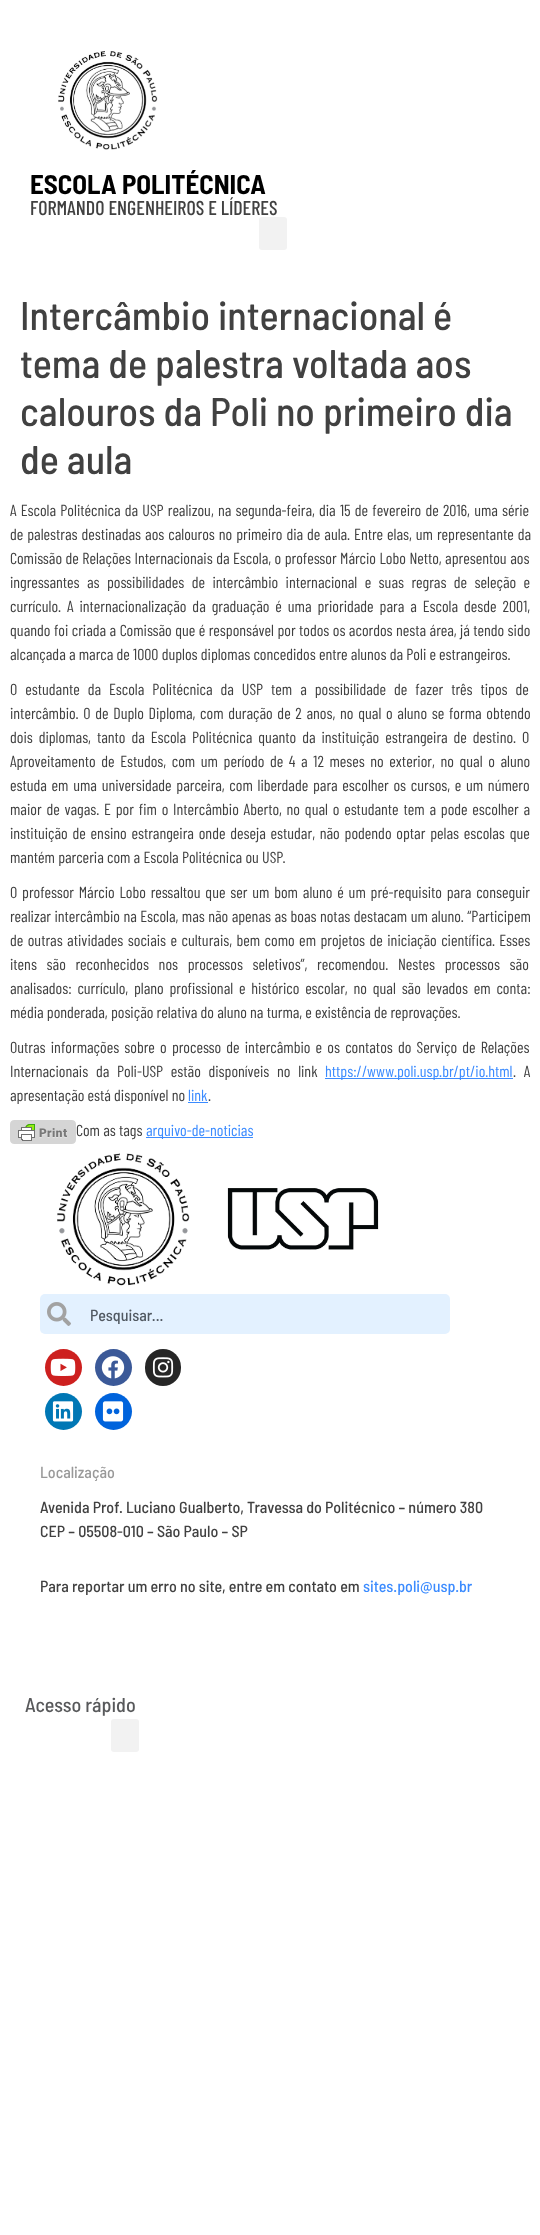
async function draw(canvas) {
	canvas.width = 540;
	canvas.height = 2235;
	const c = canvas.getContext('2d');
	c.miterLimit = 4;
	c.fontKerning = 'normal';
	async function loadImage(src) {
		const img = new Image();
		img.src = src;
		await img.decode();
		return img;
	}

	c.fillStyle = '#fff';
	c.fillRect(0, 0, 540, 2235);
	c.drawImage(await loadImage('img1.png'), 58, 51, 100, 99);
	c.font = 'bold 27px Barlow Semi Condensed';
	c.fillStyle = '#000';
	c.fillText('ESCOLA POLITÉCNICA', 30, 194);
	c.font = '500 20px Barlow Condensed';
	c.fillStyle = '#414141';
	c.fillText('FORMANDO ENGENHEIROS E LÍDERES', 30, 215);
	c.fillStyle = '#f2f2f2';
	c.beginPath();
	c.roundRect(259, 217, 28, 33, 3);
	c.fill();
	c.font = '500 40px Barlow Semi Condensed';
	c.fillStyle = '#414141';
	for (const [text, x, y] of [
		['Intercâmbio internacional é', 20, 330],
		['tema de palestra voltada aos', 20, 378],
		['calouros da Poli no primeiro dia', 20, 426],
		['de aula', 20, 474],
	]) {
		c.fillText(text, x, y);
	}
	c.wordSpacing = '1px';
	c.font = '16px Barlow Condensed';
	c.fillText('A Escola Politécnica da USP realizou, na segunda-feira, dia 15 de fevereiro de 2016, uma série', 10, 516);
	c.wordSpacing = '0.75px';
	c.fillText('de palestras destinadas aos calouros no primeiro dia de aula. Entre elas, um representante da', 10, 540);
	c.wordSpacing = '0.3px';
	c.fillText('Comissão de Relações Internacionais da Escola, o professor Márcio Lobo Netto, apresentou aos', 10, 564);
	c.wordSpacing = '4.25px';
	c.fillText('ingressantes as possibilidades de intercâmbio internacional e suas regras de seleção e', 10, 588);
	c.wordSpacing = '2.75px';
	c.fillText('currículo. A internacionalização da graduação é uma prioridade para a Escola desde 2001,', 10, 612);
	c.wordSpacing = '0.25px';
	c.fillText('quando foi criada a Comissão que é responsável por todos os acordos nesta área, já tendo sido', 10, 636);
	c.wordSpacing = '0px';
	c.fillText('alcançada a marca de 1000 duplos diplomas concedidos entre alunos da Poli e estrangeiros.', 10, 660);
	c.wordSpacing = '4.75px';
	c.fillText('O estudante da Escola Politécnica da USP tem a possibilidade de fazer três tipos de', 10, 695);
	c.wordSpacing = '1.5px';
	c.fillText('intercâmbio. O de Duplo Diploma, com duração de 2 anos, no qual o aluno se forma obtendo', 10, 719);
	c.wordSpacing = '2.75px';
	c.fillText('dois diplomas, tanto da Escola Politécnica quanto da instituição estrangeira de destino. O', 10, 743);
	c.wordSpacing = '2.4px';
	c.fillText('Aproveitamento de Estudos, com um período de 4 a 12 meses no exterior, no qual o aluno', 10, 767);
	c.wordSpacing = '1.5px';
	c.fillText('estuda em uma universidade parceira, com liberdade para escolher os cursos, e um número', 10, 791);
	c.wordSpacing = '1.6px';
	c.fillText('maior de vagas. E por fim o Intercâmbio Aberto, no qual o estudante tem a pode escolher a', 10, 815);
	c.fillText('instituição de ensino estrangeira onde deseja estudar, não podendo optar pelas escolas que', 10, 839);
	c.wordSpacing = '0px';
	c.fillText('mantém parceria com a Escola Politécnica ou USP.', 10, 863);
	c.wordSpacing = '1.6px';
	c.fillText('O professor Márcio Lobo ressaltou que ser um bom aluno é um pré-requisito para conseguir', 10, 898);
	c.wordSpacing = '0.25px';
	c.fillText('realizar intercâmbio na Escola, mas não apenas as boas notas destacam um aluno. “Participem', 10, 922);
	c.wordSpacing = '1.25px';
	c.fillText('de outras atividades sociais e culturais, bem como em projetos de iniciação científica. Esses', 10, 946);
	c.wordSpacing = '6.5px';
	c.fillText('itens são reconhecidos nos processos seletivos”, recomendou. Nestes processos são', 10, 970);
	c.wordSpacing = '2.6px';
	c.fillText('analisados: currículo, plano profissional e histórico escolar, no qual são levados em conta:', 10, 994);
	c.wordSpacing = '0px';
	c.fillText('média ponderada, posição relativa do aluno na turma, e existência de reprovações.', 10, 1018);
	c.wordSpacing = '2px';
	c.fillText('Outras informações sobre o processo de intercâmbio e os contatos do Serviço de Relações', 10, 1053);
	c.wordSpacing = '4.5px';
	c.fillText('Internacionais da Poli-USP estão disponíveis no link', 10, 1077);
	c.fillStyle = '#3b8bff';
	c.fillRect(325, 1078, 188, 1);
	c.wordSpacing = '0px';
	c.fillText('https://www.poli.usp.br/pt/io.html', 325, 1077);
	c.wordSpacing = '4.5px';
	c.fillStyle = '#414141';
	c.fillText('. A', 513, 1077);
	c.wordSpacing = '0px';
	c.fillText('apresentação está disponível no', 10, 1101);
	c.fillStyle = '#3b8bff';
	c.fillText('link', 188, 1101);
	c.fillRect(188, 1102, 20, 1);
	c.fillStyle = '#414141';
	c.fillText('.', 208, 1101);
	c.drawImage(await loadImage('img2.png'), 10, 1120, 66, 24);
	c.fillText('Com as tags', 76, 1136);
	c.fillStyle = '#3b8bff';
	c.fillRect(146, 1137, 107, 1);
	c.fillText('arquivo-de-noticias', 146, 1136);
	c.drawImage(await loadImage('img3.png'), 57, 1153, 133, 133);
	c.drawImage(await loadImage('img4.png'), 227, 1188, 152, 62);
	c.fillStyle = '#e3f1ff';
	c.beginPath();
	c.roundRect(40, 1294, 410, 40, 5);
	c.fill();
	c.drawImage(await loadImage('img5.png'), 47, 1302, 24, 24);
	c.font = '500 16px Barlow Semi Condensed';
	c.fillStyle = '#515962';
	c.fillText('Pesquisar...', 90, 1321);
	c.fillStyle = '#cd201f';
	c.beginPath();
	c.arc(63.5, 1367.5, 18.5, 0, 2 * Math.PI);
	c.fill();
	c.drawImage(await loadImage('img6.png'), 50, 1358, 26, 18);
	c.fillStyle = '#3b5998';
	c.beginPath();
	c.arc(113.5, 1367.5, 18.5, 0, 2 * Math.PI);
	c.fill();
	c.drawImage(await loadImage('img7.png'), 101, 1356, 24, 23);
	c.fillStyle = '#262626';
	c.beginPath();
	c.roundRect(145, 1349, 36, 37, 18);
	c.fill();
	c.drawImage(await loadImage('img8.png'), 152, 1357, 22, 21);
	c.fillStyle = '#0077b5';
	c.beginPath();
	c.arc(63.5, 1411.5, 18.5, 0, 2 * Math.PI);
	c.fill();
	c.drawImage(await loadImage('img9.png'), 52, 1401, 22, 21);
	c.fillStyle = '#0063dc';
	c.beginPath();
	c.arc(113.5, 1411.5, 18.5, 0, 2 * Math.PI);
	c.fill();
	c.drawImage(await loadImage('img10.png'), 102, 1401, 22, 21);
	c.fillStyle = '#999';
	c.fillText('Localização', 40, 1478);
	c.fillStyle = '#414141';
	for (const [text, x, y] of [
		['Avenida Prof. Luciano Gualberto, Travessa do Politécnico – número 380', 40, 1513],
		['CEP – 05508-010 – São Paulo – SP', 40, 1537],
		['Para reportar um erro no site, entre em contato em', 40, 1592],
	]) {
		c.fillText(text, x, y);
	}
	c.fillStyle = '#3b8bff';
	c.fillText('sites.poli@usp.br', 363, 1592);
	c.font = '500 20px Barlow Semi Condensed';
	c.fillStyle = '#58595b';
	c.fillText('Acesso rápido', 25, 1712);
	c.fillStyle = '#f2f2f2';
	c.beginPath();
	c.roundRect(111, 1719, 28, 33, 3);
	c.fill();
}

draw(document.querySelector('canvas'));
